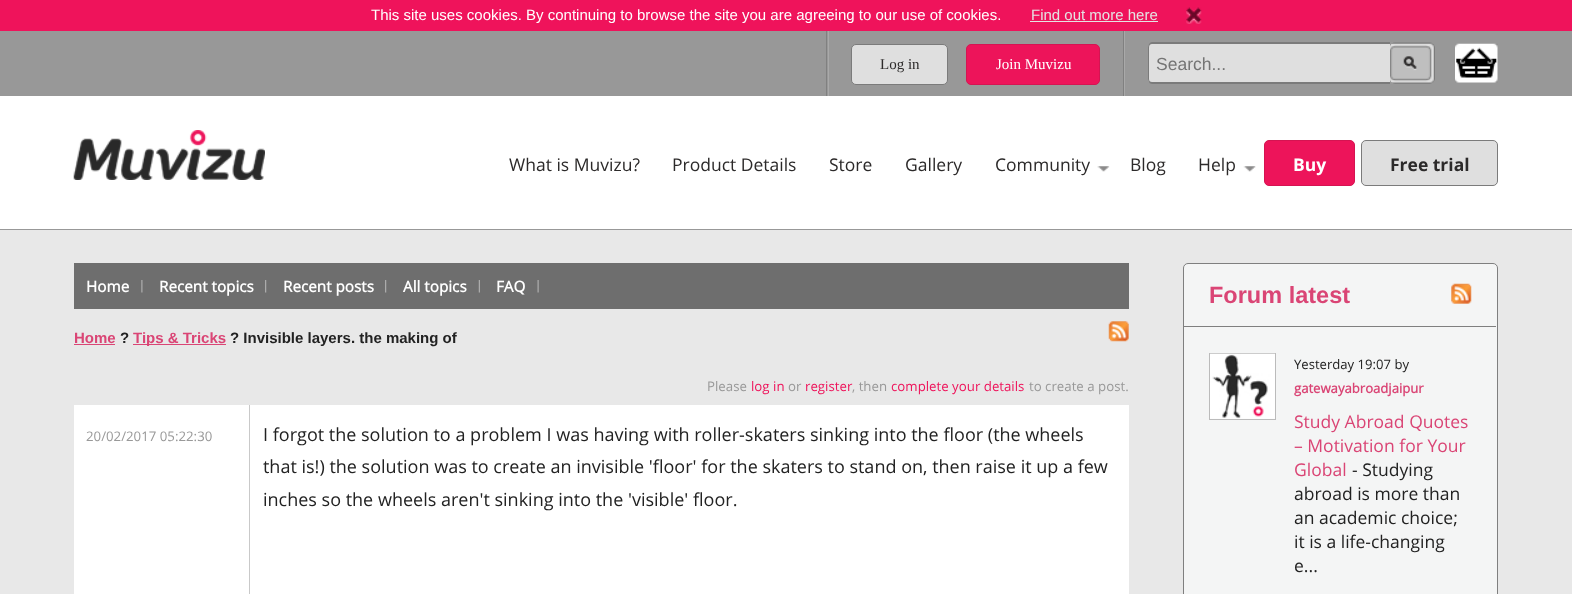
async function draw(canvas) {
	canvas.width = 1572;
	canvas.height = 594;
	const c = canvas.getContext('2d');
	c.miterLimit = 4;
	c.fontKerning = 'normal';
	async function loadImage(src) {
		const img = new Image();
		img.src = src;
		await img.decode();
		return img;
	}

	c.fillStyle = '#fff';
	c.fillRect(0, 0, 1572, 594);
	c.fillStyle = '#ef135b';
	c.fillRect(0, 0, 1572, 31);
	c.font = '15px Liberation Sans';
	c.fillStyle = '#fff';
	c.fillText('This site uses cookies. By continuing to browse the site you are agreeing to our use of cookies.', 371, 20);
	c.fillStyle = '#e5e3e3';
	c.fillText('Find out more here', 1031, 20);
	c.fillRect(1030, 21, 128, 1);
	c.drawImage(await loadImage('img1.png'), 1186, 7, 16, 17);
	for (const [x, y, w, h, color] of [
		[0, 31, 1572, 65, '#989898'],
		[1124, 31, 1, 65, '#a9a9a9'],
		[826, 31, 1, 65, '#808080'],
		[828, 31, 1, 65, '#a9a9a9'],
	]) {
		c.fillStyle = color;
		c.fillRect(x, y, w, h);
	}
	c.fillStyle = '#dfdfdf';
	c.beginPath();
	c.roundRect(851.5, 44.5, 96, 40, 4.5);
	c.fill();
	c.strokeStyle = '#7b7b7b';
	c.stroke();
	c.font = '15px Liberation Serif';
	c.fillStyle = '#2c2a2a';
	c.fillText('Log in', 880, 69);
	c.fillStyle = '#808080';
	c.fillRect(1123, 31, 1, 65);
	c.fillStyle = '#ed145a';
	c.beginPath();
	c.roundRect(966.5, 44.5, 133, 40, 4.5);
	c.fill();
	c.strokeStyle = '#d51452';
	c.stroke();
	c.fillStyle = '#fff';
	c.fillText('Join Muvizu', 996, 69);
	c.fillStyle = '#dfdfdf';
	c.beginPath();
	c.roundRect(1148, 43, 242, 41, [5, 0, 0, 5]);
	c.fill();
	c.fillStyle = '#7b7b7b';
	c.beginPath();
	c.moveTo(1152, 42);
	c.lineTo(1390, 42);
	c.lineTo(1390, 84);
	c.lineTo(1152, 84);
	c.bezierCurveTo(1150, 84, 1148, 82, 1148, 79);
	c.lineTo(1148, 48);
	c.bezierCurveTo(1148, 45, 1150, 42, 1152, 42);
	c.closePath();
	c.moveTo(1152, 44);
	c.lineTo(1390, 44);
	c.lineTo(1390, 82);
	c.lineTo(1152, 82);
	c.bezierCurveTo(1150, 82, 1149, 81, 1149, 79);
	c.lineTo(1149, 48);
	c.bezierCurveTo(1149, 45, 1150, 44, 1152, 44);
	c.closePath();
	c.fill('evenodd');
	c.font = '17.5px Liberation Sans';
	c.fillStyle = '#757575';
	c.fillText('Search...', 1156, 70);
	c.drawImage(await loadImage('img2.png'), 1390, 42, 45, 42);
	c.drawImage(await loadImage('img3.png'), 1455, 43, 43, 40);
	c.fillStyle = '#989898';
	c.fillRect(0, 229, 1572, 1);
	c.drawImage(await loadImage('img4.png'), 73, 130, 192, 50);
	c.font = '17.5px Open Sans';
	c.fillStyle = '#2c2a2a';
	for (const [text, x, y] of [
		['What is Muvizu?', 509, 171],
		['Product Details', 672, 171],
		['Store', 829, 171],
		['Gallery', 905, 171],
	]) {
		c.fillText(text, x, y);
	}
	c.drawImage(await loadImage('img5.png'), 1097, 166, 13, 6);
	c.fillText('Community', 995, 171);
	c.fillText('Blog', 1130, 171);
	c.drawImage(await loadImage('img6.png'), 1243, 166, 13, 6);
	c.fillText('Help', 1198, 171);
	c.fillStyle = '#ed145a';
	c.beginPath();
	c.roundRect(1264.5, 140.5, 90, 45, 4.5);
	c.fill();
	c.stroke();
	c.font = 'bold 17.5px "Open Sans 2"';
	c.fillStyle = '#fff';
	c.fillText('Buy', 1293, 171);
	c.fillStyle = '#dfdfdf';
	c.beginPath();
	c.roundRect(1361.5, 140.5, 136, 45, 4.5);
	c.fill();
	c.strokeStyle = '#7b7b7b';
	c.stroke();
	c.fillStyle = '#2c2a2a';
	c.fillText('Free trial', 1390, 171);
	c.fillStyle = '#e8e8e8';
	c.fillRect(0, 230, 1572, 364);
	c.fillStyle = '#6e6e6e';
	c.fillRect(74, 263, 1055, 46);
	c.drawImage(await loadImage('img7.png'), 141, 280, 2, 13);
	c.font = 'bold 15.25px Open Sans';
	c.fillStyle = '#fff';
	c.fillText('Home', 86, 292);
	c.drawImage(await loadImage('img8.png'), 265, 280, 2, 13);
	c.fillText('Recent topics', 159, 292);
	c.drawImage(await loadImage('img8.png'), 385, 280, 2, 13);
	c.fillText('Recent posts', 283, 292);
	c.drawImage(await loadImage('img9.png'), 478, 280, 2, 13);
	c.fillText('All topics', 403, 292);
	c.drawImage(await loadImage('img10.png'), 537, 280, 2, 13);
	c.fillText('FAQ', 496, 292);
	c.font = 'bold 15px Liberation Sans';
	c.fillStyle = '#da4575';
	c.fillText('Home', 74, 343);
	c.fillRect(74, 344, 41, 1);
	c.fillStyle = '#222';
	c.fillText('?', 120, 343);
	c.fillStyle = '#da4575';
	c.fillRect(133, 344, 93, 1);
	c.fillText('Tips & Tricks', 133, 343);
	c.fillStyle = '#222';
	c.fillText('? Invisible layers. the making of', 230, 343);
	c.drawImage(await loadImage('img11.png'), 1108, 321, 21, 21);
	c.font = '13.25px Open Sans';
	c.fillStyle = '#999';
	c.fillText('Please', 707, 391);
	c.fillStyle = '#ee145b';
	c.fillText('log in', 751, 391);
	c.fillStyle = '#999';
	c.fillText('or', 788, 391);
	c.fillStyle = '#ee145b';
	c.fillText('register', 805, 391);
	c.fillStyle = '#999';
	c.fillText(', then', 852, 391);
	c.fillStyle = '#ee145b';
	c.fillText('complete your details', 891, 391);
	c.fillStyle = '#999';
	c.fillText('to create a post.', 1029, 391);
	c.fillStyle = '#fff';
	c.fillRect(74, 405, 1055, 189);
	c.fillStyle = '#999';
	c.fillText('20/02/2017 05:22:30', 86, 441);
	c.fillStyle = '#c9c9c9';
	c.fillRect(249, 405, 1, 189);
	c.font = '18px Open Sans';
	c.fillStyle = '#222';
	for (const [text, x, y] of [
		['I forgot the solution to a problem I was having with roller-skaters sinking into the floor (the wheels', 263, 441],
		['that is!) the solution was to create an invisible \'floor\' for the skaters to stand on, then raise it up a few', 263, 473],
		['inches so the wheels aren\'t sinking into the \'visible\' floor.', 263, 506],
	]) {
		c.fillText(text, x, y);
	}
	c.fillStyle = '#f4f5f5';
	c.beginPath();
	c.roundRect(1183.5, 263.5, 314, 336, 4.5);
	c.fill();
	c.strokeStyle = '#7f7f7f';
	c.stroke();
	c.fillStyle = '#7f7f7f';
	c.fillRect(1184, 326, 312, 1);
	c.font = 'bold 23.5px Liberation Sans';
	c.fillStyle = '#da4575';
	c.fillText('Forum latest', 1209, 303);
	c.drawImage(await loadImage('img12.png'), 1451, 283, 21, 21);
	c.strokeStyle = '#bbb';
	c.strokeRect(1209.5, 353.5, 66, 66);
	c.drawImage(await loadImage('img13.png'), 1210, 353, 65, 66);
	c.font = '13.1px Open Sans';
	c.fillStyle = '#222';
	c.fillText('Yesterday 19:07 by', 1294, 369);
	c.font = 'bold 13.1px Open Sans';
	c.fillStyle = '#da4575';
	c.fillText('gatewayabroadjaipur', 1294, 393);
	c.font = '17.5px Open Sans';
	for (const [text, x, y] of [
		['Study Abroad Quotes', 1294, 428],
		['– Motivation for Your', 1294, 452],
		['Global', 1294, 476],
	]) {
		c.fillText(text, x, y);
	}
	c.fillStyle = '#222';
	for (const [text, x, y] of [
		['- Studying', 1352, 476],
		['abroad is more than', 1294, 500],
		['an academic choice;', 1294, 524],
		['it is a life‑changing', 1294, 548],
		['e...', 1294, 572],
	]) {
		c.fillText(text, x, y);
	}
}

draw(document.querySelector('canvas'));
